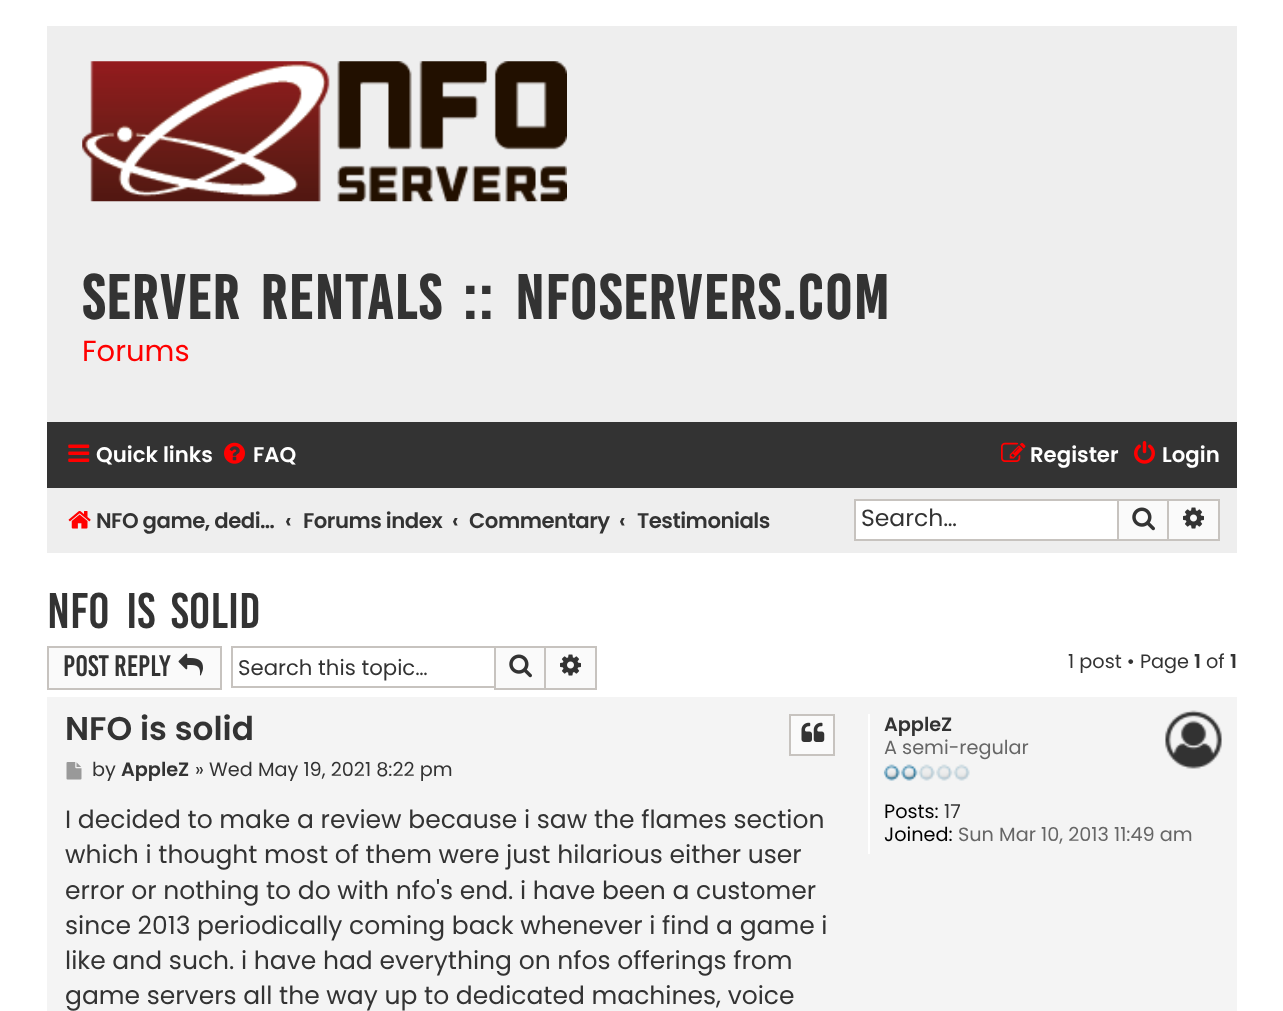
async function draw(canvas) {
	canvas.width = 1283;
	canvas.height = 1011;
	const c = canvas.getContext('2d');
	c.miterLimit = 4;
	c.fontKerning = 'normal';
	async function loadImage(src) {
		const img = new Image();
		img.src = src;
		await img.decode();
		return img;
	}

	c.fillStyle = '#fff';
	c.fillRect(0, 0, 1283, 1011);
	c.fillStyle = '#eee';
	c.fillRect(47, 26, 1190, 396);
	c.drawImage(await loadImage('img1.png'), 82, 61, 485, 141);
	c.letterSpacing = '1.75px';
	c.wordSpacing = '7px';
	c.font = 'bold 48.1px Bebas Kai';
	c.fillStyle = '#333';
	c.fillText('Server rentals :: NFOservers.com', 82, 319);
	c.letterSpacing = '0px';
	c.wordSpacing = '0px';
	c.font = '29px Poppins';
	c.fillStyle = '#f00';
	c.fillText('Forums', 82, 361);
	c.fillStyle = '#333';
	c.fillRect(47, 422, 1190, 66);
	c.drawImage(await loadImage('img2.png'), 68, 444, 22, 18);
	c.font = '600 21.25px Poppins';
	c.fillStyle = '#fff';
	c.fillText('Quick links', 96, 462);
	c.drawImage(await loadImage('img3.png'), 224, 442, 21, 22);
	c.fillText('FAQ', 253, 462);
	c.drawImage(await loadImage('img4.png'), 1001, 442, 25, 20);
	c.fillText('Register', 1030, 462);
	c.drawImage(await loadImage('img5.png'), 1134, 441, 21, 23);
	c.fillText('Login', 1162, 462);
	c.fillStyle = '#eee';
	c.fillRect(47, 488, 1190, 65);
	c.drawImage(await loadImage('img6.png'), 68, 511, 23, 18);
	c.letterSpacing = '-0.5px';
	c.fillStyle = '#333';
	c.fillText('NFO game, dedi…', 96, 528);
	c.letterSpacing = '0px';
	c.fillText('‹', 285, 528);
	c.letterSpacing = '-0.5px';
	c.fillText('Forums index', 303, 528);
	c.letterSpacing = '0px';
	c.fillText('‹', 452, 528);
	c.letterSpacing = '-0.5px';
	c.fillText('Commentary', 469, 528);
	c.letterSpacing = '0px';
	c.fillText('‹', 619, 528);
	c.letterSpacing = '-0.5px';
	c.fillText('Testimonials', 637, 528);
	for (const [x, y, w, h, color] of [
		[856, 501, 261, 38, '#fff'],
		[854, 499, 263, 2, '#c7c3bf'],
		[854, 539, 263, 2, '#c7c3bf'],
		[854, 499, 2, 42, '#c7c3bf'],
	]) {
		c.fillStyle = color;
		c.fillRect(x, y, w, h);
	}
	c.letterSpacing = '0px';
	c.font = '23.5px Poppins';
	c.fillStyle = '#333';
	c.fillText('Search…', 861, 526);
	c.fillStyle = '#fafafa';
	c.beginPath();
	c.rect(1118, 500, 50, 40);
	c.fill();
	c.strokeStyle = '#c7c3bf';
	c.lineWidth = 2;
	c.stroke();
	c.drawImage(await loadImage('img7.png'), 1132, 507, 23, 24);
	for (const [x, y, w, h, color] of [
		[1169, 501, 49, 38, '#fafafa'],
		[1169, 499, 51, 2, '#c7c3bf'],
		[1218, 499, 2, 42, '#c7c3bf'],
		[1169, 539, 51, 2, '#c7c3bf'],
	]) {
		c.fillStyle = color;
		c.fillRect(x, y, w, h);
	}
	c.drawImage(await loadImage('img8.png'), 1183, 507, 21, 22);
	c.wordSpacing = '7px';
	c.font = '38.5px Bebas Kai';
	c.fillStyle = '#333';
	c.fillText('NFO is solid', 47, 628);
	c.fillStyle = '#fafafa';
	c.beginPath();
	c.rect(48, 647, 173, 42);
	c.fill();
	c.stroke();
	c.wordSpacing = '0px';
	c.font = '22.75px Bebas Kai';
	c.fillStyle = '#333';
	c.fillText('Post Reply', 63, 676);
	c.drawImage(await loadImage('img9.png'), 178, 653, 25, 23);
	for (const [x, y, w, h, color] of [
		[231, 646, 263, 2, '#c7c3bf'],
		[231, 686, 263, 2, '#c7c3bf'],
		[231, 646, 2, 42, '#c7c3bf'],
	]) {
		c.fillStyle = color;
		c.fillRect(x, y, w, h);
	}
	c.font = '21.25px Poppins';
	c.fillStyle = '#333';
	c.fillText('Search this topic…', 238, 675);
	c.fillStyle = '#fafafa';
	c.beginPath();
	c.rect(495, 647, 50, 42);
	c.fill();
	c.stroke();
	c.drawImage(await loadImage('img7.png'), 509, 654, 23, 24);
	for (const [x, y, w, h, color] of [
		[546, 648, 49, 40, '#fafafa'],
		[546, 646, 51, 2, '#c7c3bf'],
		[595, 646, 2, 44, '#c7c3bf'],
		[546, 688, 51, 2, '#c7c3bf'],
	]) {
		c.fillStyle = color;
		c.fillRect(x, y, w, h);
	}
	c.drawImage(await loadImage('img8.png'), 560, 654, 21, 22);
	c.font = '19.25px Poppins';
	c.fillStyle = '#333';
	c.fillText('1 post • Page', 1068, 668);
	c.font = '600 19.25px Poppins';
	c.fillText('1', 1194, 668);
	c.font = '19.25px Poppins';
	c.fillText('of', 1206, 668);
	c.font = '600 19.25px Poppins';
	c.fillText('1', 1230, 668);
	c.fillStyle = '#f4f4f4';
	c.fillRect(47, 697, 1190, 314);
	c.drawImage(await loadImage('img10.png'), 1165, 710, 57, 59);
	c.font = '600 32.75px Poppins';
	c.fillStyle = '#333';
	c.fillText('NFO is solid', 65, 740);
	c.fillStyle = '#fafafa';
	c.beginPath();
	c.rect(790, 715, 44, 40);
	c.fill();
	c.stroke();
	c.drawImage(await loadImage('img11.png'), 801, 722, 24, 20);
	c.drawImage(await loadImage('img12.png'), 66, 762, 16, 18);
	c.font = '19.25px Poppins';
	c.fillStyle = '#333';
	c.fillText('by', 92, 776);
	c.font = '600 19.25px Poppins';
	c.fillText('AppleZ', 121, 776);
	c.font = '19.25px Poppins';
	c.fillText('» Wed May 19, 2021 8:22 pm', 195, 776);
	c.font = '25px Poppins';
	for (const [text, x, y] of [
		['I decided to make a review because i saw the flames section', 65, 828],
		['which i thought most of them were just hilarious either user', 65, 863],
		['error or nothing to do with nfo\'s end. i have been a customer', 65, 899],
		['since 2013 periodically coming back whenever i find a game i', 65, 934],
		['like and such. i have had everything on nfos offerings from', 65, 969],
		['game servers all the way up to dedicated machines, voice', 65, 1004],
	]) {
		c.fillText(text, x, y);
	}
	c.fillStyle = '#fff';
	c.fillRect(868, 714, 2, 140);
	c.font = '600 19.25px Poppins';
	c.fillStyle = '#333';
	c.fillText('AppleZ', 884, 731);
	c.font = '19.25px Poppins';
	c.fillStyle = '#666';
	c.fillText('A semi-regular', 884, 754);
	c.drawImage(await loadImage('img13.png'), 883, 764, 87, 17);
	c.fillStyle = '#000';
	c.fillText('Posts:', 884, 818);
	c.fillStyle = '#333';
	c.fillText('17', 944, 818);
	c.fillStyle = '#000';
	c.fillText('Joined:', 884, 841);
	c.fillStyle = '#666';
	c.fillText('Sun Mar 10, 2013 11:49 am', 958, 841);
}

draw(document.querySelector('canvas'));
